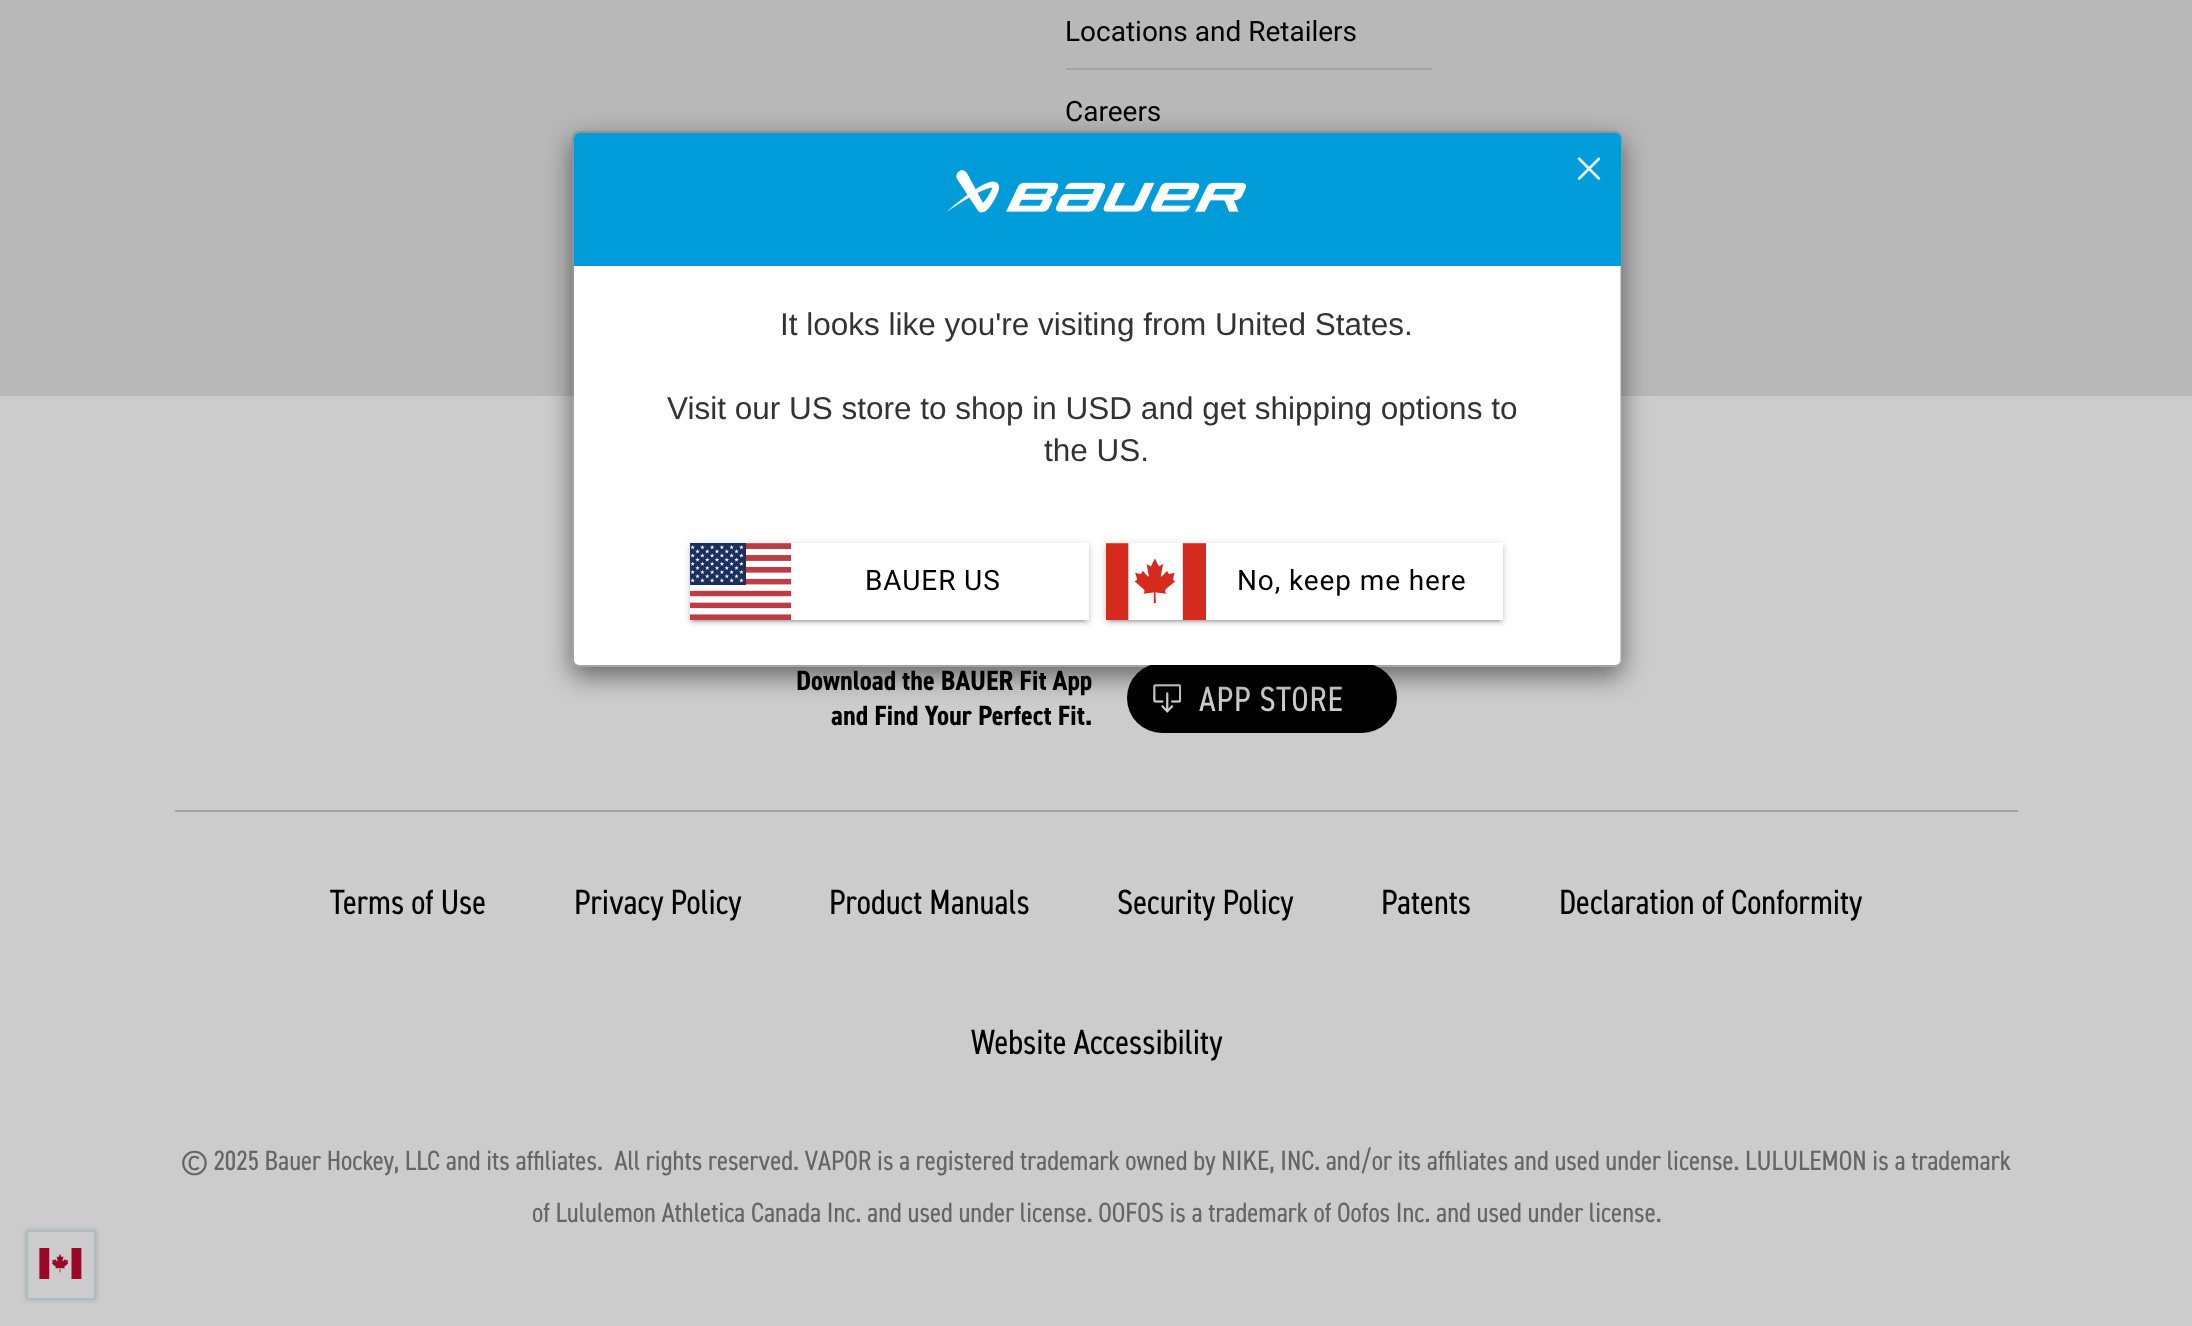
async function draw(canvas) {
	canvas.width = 2192;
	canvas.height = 1326;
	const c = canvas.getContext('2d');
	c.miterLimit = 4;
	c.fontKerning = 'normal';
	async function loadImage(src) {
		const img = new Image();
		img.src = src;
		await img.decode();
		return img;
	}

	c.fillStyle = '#ccc';
	c.fillRect(0, 0, 2192, 1326);
	c.fillStyle = '#b8b8b8';
	c.fillRect(0, 0, 2192, 396);
	c.font = '28px Roboto';
	c.fillStyle = '#000';
	c.fillText('Locations and Retailers', 1065, 41);
	c.fillStyle = '#a3a3a3';
	c.fillRect(1066, 68, 366, 2);
	c.fillStyle = '#000';
	c.fillText('Careers', 1065, 121);
	c.fillStyle = '#a3a3a3';
	c.fillRect(175, 810, 1843, 2);
	c.font = 'bold 28px "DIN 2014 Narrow"';
	c.fillStyle = '#000';
	c.fillText('Download the BAUER Fit App', 796, 690);
	c.fillText('and Find Your Perfect Fit.', 831, 725);
	c.beginPath();
	c.roundRect(1127, 663, 270, 70, 35);
	c.fill();
	c.drawImage(await loadImage('img1.png'), 1153, 684, 28, 29);
	c.letterSpacing = '0.9px';
	c.font = '35px "DIN 2014 Narrow"';
	c.fillStyle = '#ccc';
	c.fillText('APP STORE', 1199, 711);
	c.letterSpacing = '0px';
	c.fillStyle = '#000';
	for (const [text, x, y] of [
		['Terms of Use', 330, 914],
		['Privacy Policy', 574, 914],
		['Product Manuals', 829, 914],
		['Security Policy', 1117, 914],
		['Patents', 1381, 914],
		['Declaration of Conformity', 1559, 914],
		['Website Accessibility', 971, 1054],
	]) {
		c.fillText(text, x, y);
	}
	c.font = '28px "DIN 2014 Narrow"';
	c.fillStyle = '#666';
	c.fillText('© 2025 Bauer Hockey, LLC and its affiliates.  All rights reserved. VAPOR is a registered trademark owned by NIKE, INC. and/or its affiliates and used under license. LULULEMON is a trademark', 181, 1170);
	c.fillText('of Lululemon Athletica Canada Inc. and used under license. OOFOS is a trademark of Oofos Inc. and used under license.', 532, 1222);
	c.save();
	c.beginPath();
	c.moveTo(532, 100);
	c.lineTo(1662, 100);
	c.lineTo(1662, 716);
	c.lineTo(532, 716);
	c.closePath();
	c.moveTo(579, 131);
	c.lineTo(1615, 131);
	c.bezierCurveTo(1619, 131, 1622, 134, 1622, 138);
	c.lineTo(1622, 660);
	c.bezierCurveTo(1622, 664, 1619, 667, 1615, 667);
	c.lineTo(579, 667);
	c.bezierCurveTo(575, 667, 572, 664, 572, 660);
	c.lineTo(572, 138);
	c.bezierCurveTo(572, 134, 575, 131, 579, 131);
	c.closePath();
	c.clip('evenodd');
	c.fillStyle = '#00000080';
	c.filter = 'blur(13px)';
	c.beginPath();
	c.roundRect(572, 140, 1050, 536, 7);
	c.fill();
	c.filter = 'none';
	c.restore();
	c.fillStyle = '#fff';
	c.beginPath();
	c.roundRect(574, 133, 1047, 532, 5);
	c.fill();
	c.beginPath();
	c.roundRect(573, 132, 1048, 534, 6);
	c.strokeStyle = '#00000033';
	c.lineWidth = 2;
	c.stroke();
	c.fillStyle = '#009cda';
	c.beginPath();
	c.roundRect(574, 133, 1047, 133, [5, 5, 0, 0]);
	c.fill();
	c.drawImage(await loadImage('img2.png'), 947, 170, 299, 43);
	c.drawImage(await loadImage('img3.png'), 1577, 157, 24, 23);
	c.font = '31.5px Liberation Sans';
	c.fillStyle = '#333';
	for (const [text, x, y] of [
		['It looks like you\'re visiting from United States.', 780, 335],
		['Visit our US store to shop in USD and get shipping options to', 667, 419],
		['the US.', 1044, 461],
	]) {
		c.fillText(text, x, y);
	}
	c.fillStyle = '#0000001f';
	c.filter = 'blur(4.5px)';
	c.beginPath();
	c.rect(690, 544, 399, 77);
	c.fill();
	c.filter = 'none';
	c.fillStyle = '#00000033';
	c.filter = 'blur(1px)';
	c.beginPath();
	c.rect(693, 551, 392, 70);
	c.fill();
	c.filter = 'none';
	c.fillStyle = '#00000024';
	c.filter = 'blur(2px)';
	c.beginPath();
	c.rect(690, 546, 399, 77);
	c.fill();
	c.filter = 'none';
	c.fillStyle = '#fff';
	c.fillRect(690, 543, 399, 77);
	c.drawImage(await loadImage('img4.png'), 690, 543, 101, 77);
	c.letterSpacing = '0.9px';
	c.font = '28px "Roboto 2"';
	c.fillStyle = '#000';
	c.fillText('BAUER US', 865, 590);
	c.fillStyle = '#0000001f';
	c.filter = 'blur(4.5px)';
	c.beginPath();
	c.rect(1106, 544, 397, 77);
	c.fill();
	c.filter = 'none';
	c.fillStyle = '#00000033';
	c.filter = 'blur(1px)';
	c.beginPath();
	c.rect(1110, 551, 390, 70);
	c.fill();
	c.filter = 'none';
	c.fillStyle = '#00000024';
	c.filter = 'blur(2px)';
	c.beginPath();
	c.rect(1106, 546, 397, 77);
	c.fill();
	c.filter = 'none';
	c.fillStyle = '#fff';
	c.fillRect(1106, 543, 397, 77);
	c.drawImage(await loadImage('img5.png'), 1106, 543, 100, 77);
	c.fillStyle = '#000';
	c.fillText('No, keep me here', 1237, 590);
	c.fillStyle = '#0000000f';
	c.filter = 'blur(2px)';
	c.beginPath();
	c.rect(26, 1230, 70, 70);
	c.fill();
	c.filter = 'none';
	c.fillStyle = '#0000001a';
	c.filter = 'blur(2.5px)';
	c.beginPath();
	c.rect(26, 1230, 70, 70);
	c.fill();
	c.filter = 'none';
	c.fillStyle = '#ccc';
	c.beginPath();
	c.rect(27, 1231, 68, 68);
	c.fill();
	c.strokeStyle = '#adbdc6';
	c.stroke();
	c.drawImage(await loadImage('img6.png'), 39, 1248, 43, 31);
}

draw(document.querySelector('canvas'));
